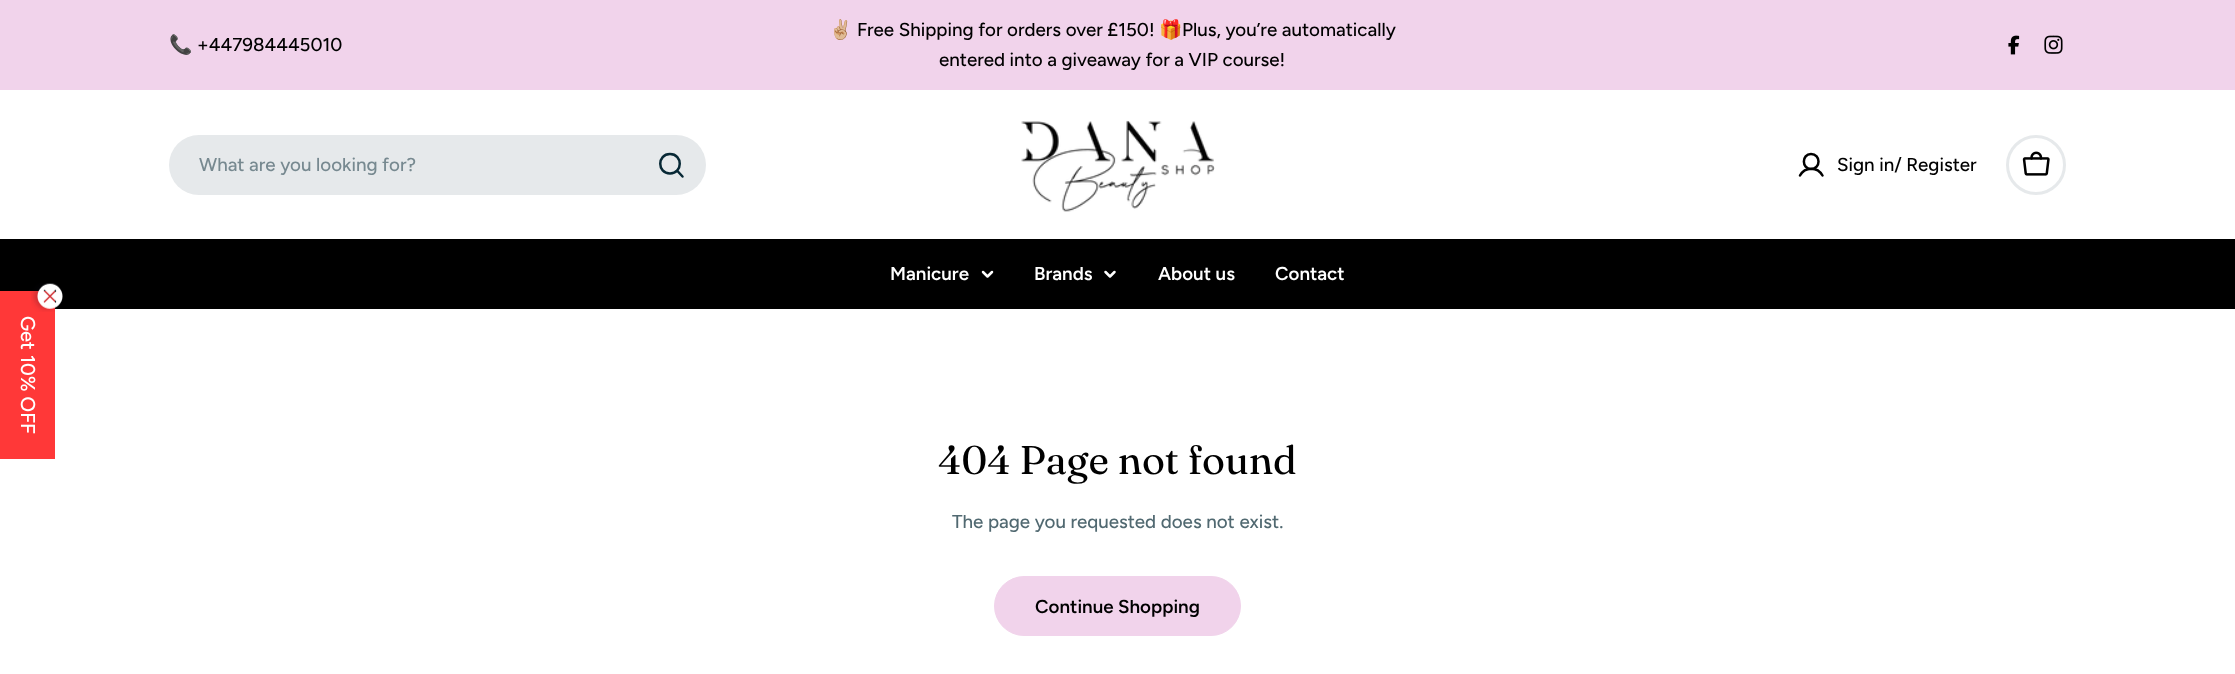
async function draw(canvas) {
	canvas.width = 2235;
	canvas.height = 674;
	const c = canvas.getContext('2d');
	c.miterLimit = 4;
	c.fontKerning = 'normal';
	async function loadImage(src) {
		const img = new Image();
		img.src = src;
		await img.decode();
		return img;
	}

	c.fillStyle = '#fff';
	c.fillRect(0, 0, 2235, 674);
	c.fillStyle = '#000';
	c.fillRect(0, 239, 2235, 70);
	c.fillStyle = '#ff3838';
	c.fillRect(0, 291, 55, 168);
	c.drawImage(await loadImage('img1.png'), 31, 283, 32, 29);
	c.font = '500 20px Figtree';
	c.fillStyle = '#fff';
	c.save();
	c.translate(21, 316);
	c.rotate(90 * Math.PI / 180);
	c.fillText('Get 10% OFF', 0, 0);
	c.restore();
	c.fillStyle = '#f1d3eb';
	c.fillRect(0, 0, 2235, 90);
	c.font = '18.75px Noto Color Emoji';
	c.fillStyle = '#000';
	c.fillText('📞', 169, 51);
	c.font = '500 18.75px Figtree';
	c.fillText('+447984445010', 197, 51);
	c.font = '18.75px Noto Color Emoji';
	c.fillText('✌🏼', 829, 36);
	c.font = '500 18.75px Figtree';
	c.fillText('Free Shipping for orders over £150!', 857, 36);
	c.font = '18.75px Noto Color Emoji';
	c.fillText('🎁', 1159, 36);
	c.font = '500 18.75px Figtree';
	c.fillText('Plus, you’re automatically', 1182, 36);
	c.fillText('entered into a giveaway for a VIP course!', 939, 66);
	c.drawImage(await loadImage('img2.png'), 2008, 35, 12, 20);
	c.drawImage(await loadImage('img3.png'), 2044, 35, 19, 19);
	c.fillStyle = '#e6e9eb';
	c.beginPath();
	c.roundRect(169, 135, 537, 60, 30);
	c.fill();
	c.fillStyle = '#778990';
	c.fillText('What are you looking for?', 199, 171);
	c.beginPath();
	c.moveTo(670, 173.5);
	c.bezierCurveTo(683, 173.5, 683, 154, 670, 154);
	c.bezierCurveTo(657, 154, 657, 173.5, 670, 173.5);
	c.closePath();
	c.moveTo(677, 170.5);
	c.lineTo(682.5, 176.5);
	c.strokeStyle = '#072835';
	c.lineWidth = 2.5;
	c.lineCap = 'round';
	c.lineJoin = 'round';
	c.stroke();
	c.drawImage(await loadImage('img4.png'), 1021, 120, 194, 92);
	c.beginPath();
	c.moveTo(1811, 169);
	c.bezierCurveTo(1821, 169, 1821, 154, 1811, 154);
	c.bezierCurveTo(1801.5, 154, 1801.5, 169, 1811, 169);
	c.closePath();
	c.moveTo(1800, 175.5);
	c.bezierCurveTo(1805, 166.5, 1817.5, 166.5, 1822.5, 175.5);
	c.strokeStyle = '#000';
	c.stroke();
	c.fillStyle = '#000';
	c.fillText('Sign in/ Register', 1837, 171);
	c.beginPath();
	c.arc(2036, 165, 28.5, 0, 2 * Math.PI);
	c.strokeStyle = '#e6e9eb';
	c.lineWidth = 3;
	c.stroke();
	c.drawImage(await loadImage('img5.png'), 2022, 151, 28, 25);
	c.font = '600 18.75px Figtree';
	c.fillStyle = '#fff';
	c.fillText('Manicure', 890, 280);
	c.beginPath();
	c.moveTo(992, 272);
	c.lineTo(987.5, 276.5);
	c.lineTo(983, 272);
	c.strokeStyle = '#fff';
	c.lineWidth = 2.5;
	c.stroke();
	c.fillText('Brands', 1034, 280);
	c.beginPath();
	c.moveTo(1114.5, 272);
	c.lineTo(1110, 276.5);
	c.lineTo(1105.5, 272);
	c.stroke();
	c.fillText('About us', 1158, 280);
	c.fillText('Contact', 1275, 280);
	c.font = '40px Fraunces';
	c.fillStyle = '#000';
	c.fillText('404 Page not found', 938, 474);
	c.font = '500 18.75px Figtree';
	c.fillStyle = '#516971';
	c.fillText('The page you requested does not exist.', 952, 528);
	c.fillStyle = '#f1d3eb';
	c.beginPath();
	c.roundRect(994.5, 576.5, 246, 59, 29.5);
	c.fill();
	c.strokeStyle = '#f1d3eb';
	c.lineWidth = 1;
	c.lineJoin = 'miter';
	c.stroke();
	c.font = '600 18.75px Figtree';
	c.fillStyle = '#000';
	c.fillText('Continue Shopping', 1035, 613);
}

draw(document.querySelector('canvas'));
